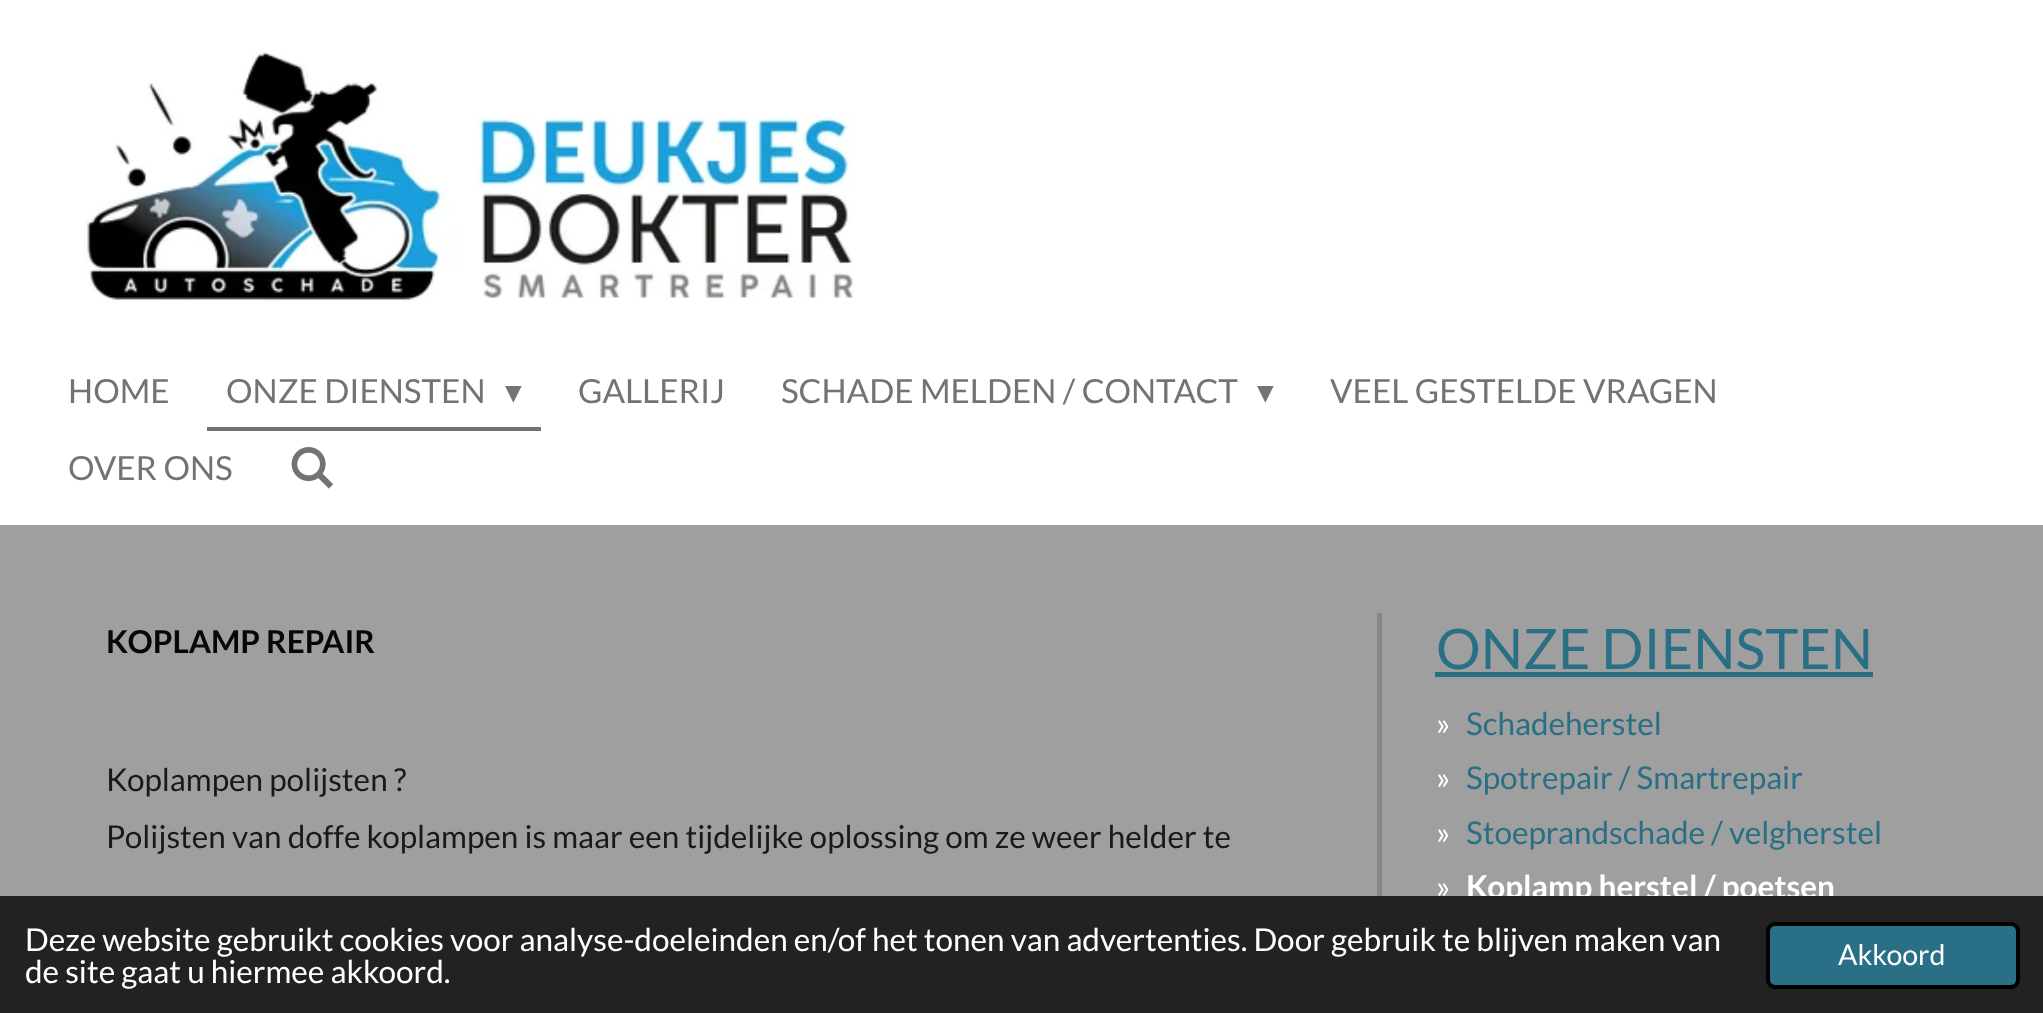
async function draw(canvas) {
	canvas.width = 2043;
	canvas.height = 1013;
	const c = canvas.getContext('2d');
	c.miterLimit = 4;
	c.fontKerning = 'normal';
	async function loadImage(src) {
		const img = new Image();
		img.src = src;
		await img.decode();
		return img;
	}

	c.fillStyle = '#fff';
	c.fillRect(0, 0, 2043, 1013);
	c.drawImage(await loadImage('img1.png'), 84, 52, 771, 252);
	c.font = '33.25px Lato';
	c.fillStyle = '#737373';
	c.fillText('HOME', 68, 403);
	c.fillRect(207, 427, 334, 4);
	c.fillText('ONZE DIENSTEN', 226, 403);
	c.font = '33.25px DejaVu Sans';
	c.fillText('▾', 505, 403);
	c.font = '33.25px Lato';
	c.fillText('GALLERIJ', 578, 403);
	c.fillText('SCHADE MELDEN / CONTACT', 781, 403);
	c.font = '33.25px DejaVu Sans';
	c.fillText('▾', 1257, 403);
	c.font = '33.25px Lato';
	c.fillText('VEEL GESTELDE VRAGEN', 1330, 403);
	c.fillText('OVER ONS', 68, 480);
	c.drawImage(await loadImage('img2.png'), 291, 447, 43, 42);
	c.fillStyle = '#9f9f9f';
	c.fillRect(0, 525, 2043, 371);
	c.font = 'bold 31.5px Lato';
	c.fillStyle = '#070707';
	c.fillText('KOPLAMP REPAIR', 106, 653);
	c.font = '31.5px Lato';
	c.fillStyle = '#171a1b';
	c.fillText('Koplampen polijsten ?', 106, 791);
	c.fillText('Polijsten van doffe koplampen is maar een tijdelijke oplossing om ze weer helder te', 106, 848);
	c.fillStyle = '#868686';
	c.fillRect(1377, 613, 5, 283);
	c.font = '56px Lato';
	c.fillStyle = '#296f86';
	c.fillText('ONZE DIENSTEN', 1436, 669);
	c.fillRect(1435, 672, 438, 5);
	c.font = '31.5px Lato';
	c.fillStyle = '#fff';
	c.fillText('»', 1436, 735);
	c.fillStyle = '#296f86';
	c.fillText('Schadeherstel', 1466, 735);
	c.fillStyle = '#fff';
	c.fillText('»', 1436, 789);
	c.fillStyle = '#296f86';
	c.fillText('Spotrepair / Smartrepair', 1466, 789);
	c.fillStyle = '#fff';
	c.fillText('»', 1436, 844);
	c.fillStyle = '#296f86';
	c.fillText('Stoeprandschade / velgherstel', 1466, 844);
	c.fillStyle = '#fff';
	c.fillText('»', 1436, 898);
	c.font = 'bold 31.5px Lato';
	c.fillText('Koplamp herstel / poetsen', 1466, 898);
	c.fillStyle = '#222';
	c.fillRect(0, 896, 2043, 117);
	c.font = '31.5px Lato';
	c.fillStyle = '#fff';
	c.fillText('Deze website gebruikt cookies voor analyse-doeleinden en/of het tonen van advertenties. Door gebruik te blijven maken van', 25, 951);
	c.fillText('de site gaat u hiermee akkoord.', 25, 983);
	c.fillStyle = '#296f86';
	c.beginPath();
	c.roundRect(1768, 924, 250, 63, 7);
	c.fill();
	c.strokeStyle = '#000';
	c.lineWidth = 4;
	c.stroke();
	c.font = '28.5px Lato';
	c.fillStyle = '#fff';
	c.fillText('Akkoord', 1838, 965);
}

draw(document.querySelector('canvas'));
